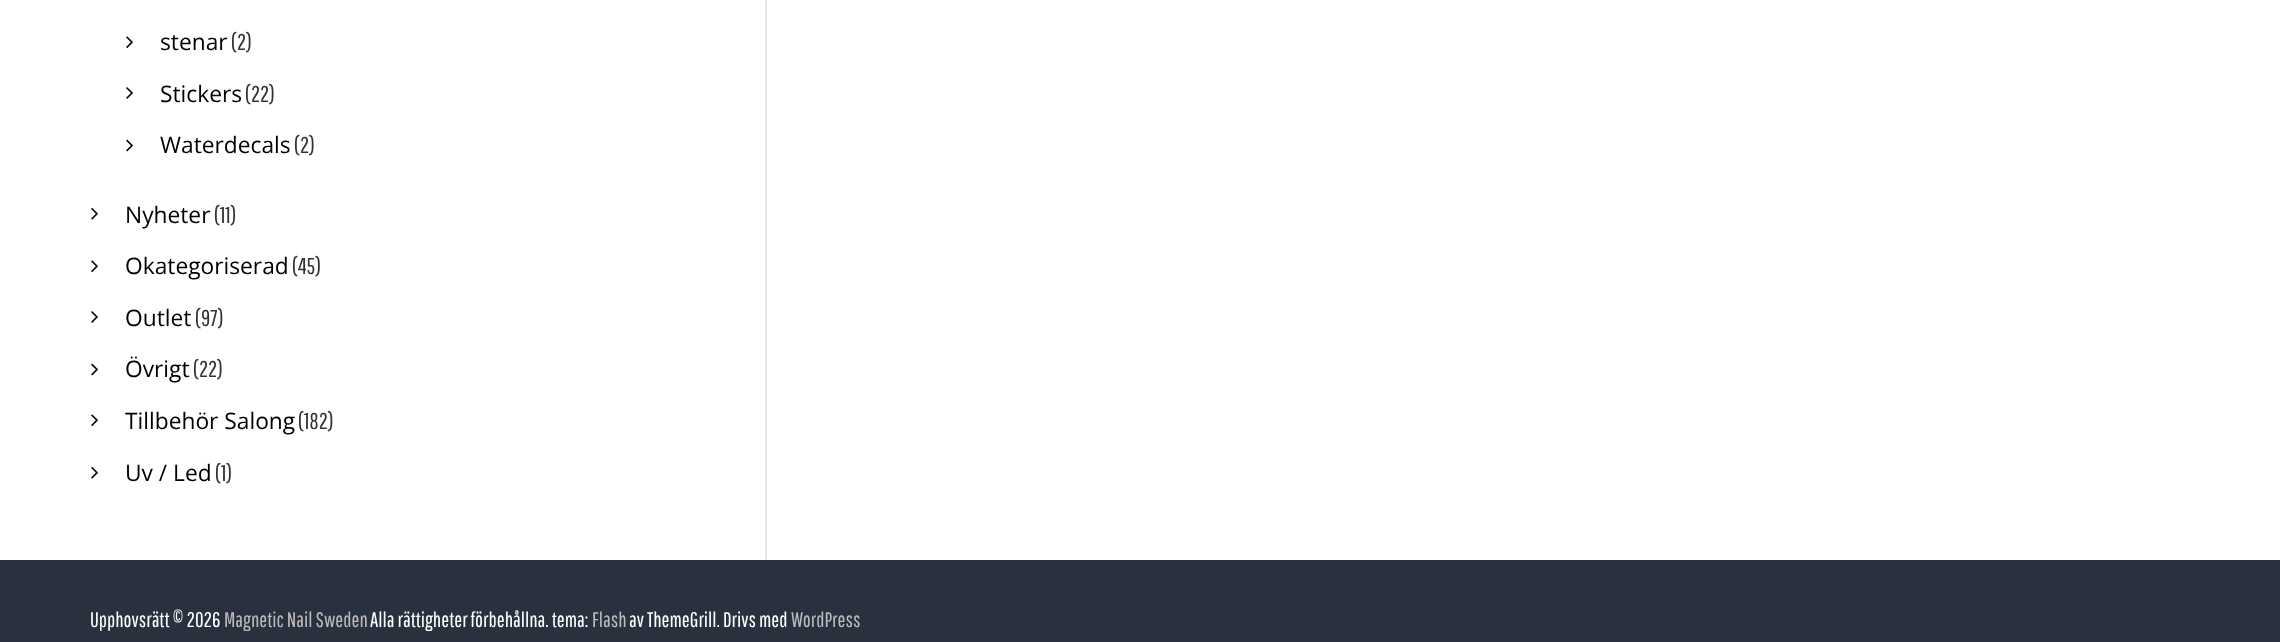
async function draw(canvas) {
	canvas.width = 2280;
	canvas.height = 642;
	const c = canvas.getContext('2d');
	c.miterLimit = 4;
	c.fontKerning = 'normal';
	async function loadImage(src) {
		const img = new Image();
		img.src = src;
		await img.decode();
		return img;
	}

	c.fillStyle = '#fff';
	c.fillRect(0, 0, 2280, 642);
	c.fillStyle = '#e6e6e6';
	c.fillRect(765, 0, 2, 560);
	c.drawImage(await loadImage('img1.png'), 126, 36, 7, 12);
	c.font = '22.75px Open Sans';
	c.fillStyle = '#000';
	c.fillText('stenar', 160, 50);
	c.font = '22.75px Pathway Gothic One';
	c.fillStyle = '#333';
	c.fillText('(2)', 231, 50);
	c.drawImage(await loadImage('img2.png'), 126, 87, 7, 12);
	c.font = '22.75px Open Sans';
	c.fillStyle = '#000';
	c.fillText('Stickers', 160, 102);
	c.font = '22.75px Pathway Gothic One';
	c.fillStyle = '#333';
	c.fillText('(22)', 245, 102);
	c.drawImage(await loadImage('img3.png'), 126, 139, 7, 13);
	c.font = '22.75px Open Sans';
	c.fillStyle = '#000';
	c.fillText('Waterdecals', 160, 153);
	c.font = '22.75px Pathway Gothic One';
	c.fillStyle = '#333';
	c.fillText('(2)', 294, 153);
	c.drawImage(await loadImage('img4.png'), 91, 208, 7, 12);
	c.font = '22.75px Open Sans';
	c.fillStyle = '#000';
	c.fillText('Nyheter', 125, 223);
	c.font = '22.75px Pathway Gothic One';
	c.fillStyle = '#333';
	c.fillText('(11)', 214, 223);
	c.drawImage(await loadImage('img1.png'), 91, 260, 7, 12);
	c.font = '22.75px Open Sans';
	c.fillStyle = '#000';
	c.fillText('Okategoriserad', 125, 274);
	c.font = '22.75px Pathway Gothic One';
	c.fillStyle = '#333';
	c.fillText('(45)', 292, 274);
	c.drawImage(await loadImage('img2.png'), 91, 311, 7, 12);
	c.font = '22.75px Open Sans';
	c.fillStyle = '#000';
	c.fillText('Outlet', 125, 326);
	c.font = '22.75px Pathway Gothic One';
	c.fillStyle = '#333';
	c.fillText('(97)', 195, 326);
	c.drawImage(await loadImage('img3.png'), 91, 363, 7, 13);
	c.font = '22.75px Open Sans';
	c.fillStyle = '#000';
	c.fillText('Övrigt', 125, 377);
	c.font = '22.75px Pathway Gothic One';
	c.fillStyle = '#333';
	c.fillText('(22)', 193, 377);
	c.drawImage(await loadImage('img1.png'), 91, 414, 7, 12);
	c.font = '22.75px Open Sans';
	c.fillStyle = '#000';
	c.fillText('Tillbehör Salong', 125, 429);
	c.font = '22.75px Pathway Gothic One';
	c.fillStyle = '#333';
	c.fillText('(182)', 298, 429);
	c.drawImage(await loadImage('img4.png'), 91, 467, 7, 12);
	c.font = '22.75px Open Sans';
	c.fillStyle = '#000';
	c.fillText('Uv / Led', 125, 481);
	c.font = '22.75px Pathway Gothic One';
	c.fillStyle = '#333';
	c.fillText('(1)', 215, 481);
	c.fillStyle = '#28313d';
	c.fillRect(0, 560, 2280, 82);
	c.font = '21px Pathway Gothic One';
	c.fillStyle = '#fff';
	c.fillText('Upphovsrätt © 2026', 90, 627);
	c.fillStyle = '#bcbaba';
	c.fillText('Magnetic Nail Sweden', 224, 627);
	c.fillStyle = '#fff';
	c.fillText('Alla rättigheter förbehållna. tema:', 370, 627);
	c.fillStyle = '#bcbaba';
	c.fillText('Flash', 592, 627);
	c.fillStyle = '#fff';
	c.fillText('av ThemeGrill. Drivs med', 629, 627);
	c.fillStyle = '#bcbaba';
	c.fillText('WordPress', 791, 627);
}

draw(document.querySelector('canvas'));
